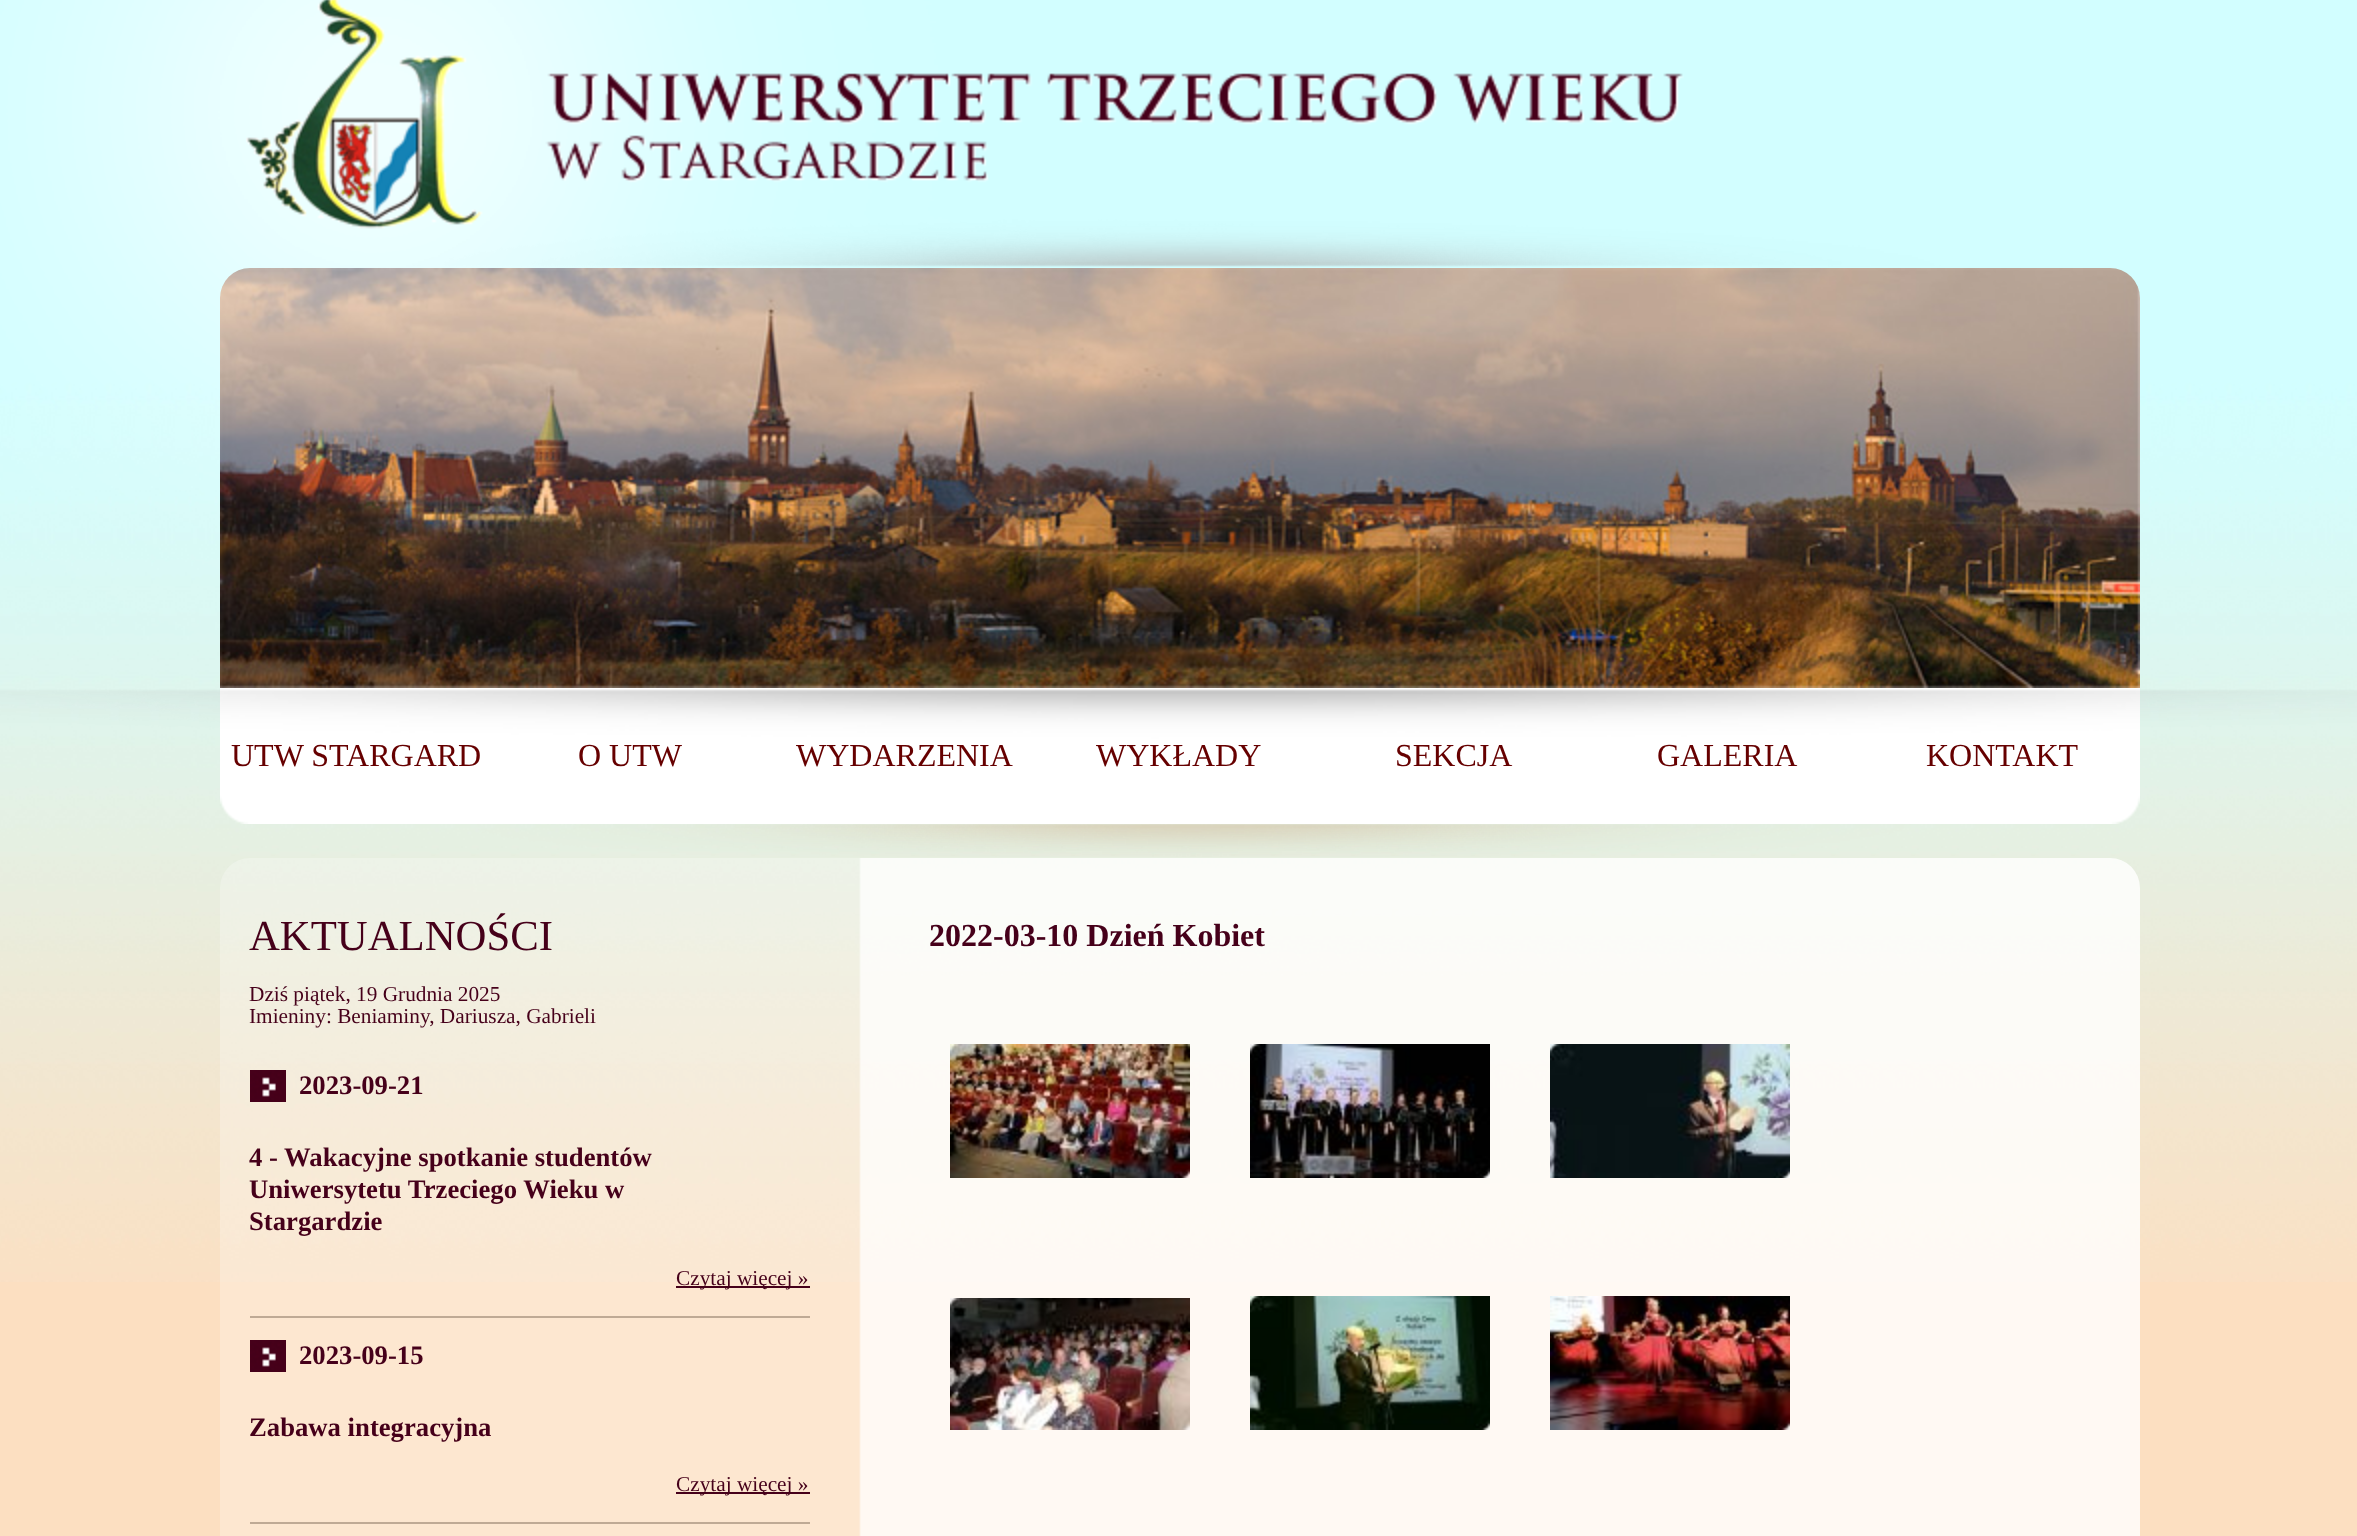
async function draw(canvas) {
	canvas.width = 2357;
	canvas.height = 1536;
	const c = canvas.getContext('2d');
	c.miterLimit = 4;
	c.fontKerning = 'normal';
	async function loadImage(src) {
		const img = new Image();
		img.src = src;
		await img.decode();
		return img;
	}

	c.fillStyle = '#fcdfc1';
	c.fillRect(0, 0, 2357, 1536);
	c.drawImage(await loadImage('img1.png'), 0, 0, 2357, 1282);
	c.drawImage(await loadImage('img2.png'), 0, 0, 2357, 857);
	c.drawImage(await loadImage('img3.png'), 246, 0, 1438, 229);
	c.drawImage(await loadImage('img4.png'), 220, 268, 1920, 420);
	c.drawImage(await loadImage('img5.png'), 220, 688, 1920, 136);
	c.font = '32px Liberation Serif';
	c.fillStyle = '#600';
	for (const [text, x, y] of [
		['UTW STARGARD', 231, 766],
		['O UTW', 578, 766],
		['WYDARZENIA', 796, 766],
		['WYKŁADY', 1096, 766],
		['SEKCJA', 1395, 766],
		['GALERIA', 1657, 766],
		['KONTAKT', 1926, 766],
	]) {
		c.fillText(text, x, y);
	}
	c.drawImage(await loadImage('img6.png'), 220, 858, 1920, 678);
	c.font = '42.75px Liberation Serif';
	c.fillStyle = '#46001a';
	c.fillText('AKTUALNOŚCI', 249, 950);
	c.font = '21.3px Liberation Serif';
	c.fillText('Dziś piątek, 19 Grudnia 2025', 249, 1001);
	c.fillText('Imieniny: Beniaminy, Dariusza, Gabrieli', 249, 1023);
	c.fillStyle = '#bfaa95';
	c.fillRect(250, 1316, 560, 2);
	c.drawImage(await loadImage('img7.png'), 250, 1070, 36, 32);
	c.font = 'bold 26.7px Liberation Serif';
	c.fillStyle = '#46001a';
	for (const [text, x, y] of [
		['2023-09-21', 299, 1094],
		['4 - Wakacyjne spotkanie studentów', 249, 1166],
		['Uniwersytetu Trzeciego Wieku w', 249, 1198],
		['Stargardzie', 249, 1230],
	]) {
		c.fillText(text, x, y);
	}
	c.fillRect(676, 1286, 134, 2);
	c.font = '21.3px Liberation Serif';
	c.fillText('Czytaj więcej »', 676, 1285);
	c.fillStyle = '#bfaa95';
	c.fillRect(250, 1522, 560, 2);
	c.drawImage(await loadImage('img7.png'), 250, 1340, 36, 32);
	c.font = 'bold 26.7px Liberation Serif';
	c.fillStyle = '#46001a';
	c.fillText('2023-09-15', 299, 1364);
	c.fillText('Zabawa integracyjna', 249, 1436);
	c.fillRect(676, 1492, 134, 2);
	c.font = '21.3px Liberation Serif';
	c.fillText('Czytaj więcej »', 676, 1491);
	c.font = 'bold 32px Liberation Serif';
	c.fillText('2022-03-10 Dzień Kobiet', 929, 946);
	c.drawImage(await loadImage('img8.png'), 950, 1044, 240, 134);
	c.drawImage(await loadImage('img9.png'), 1250, 1044, 240, 134);
	c.drawImage(await loadImage('img10.png'), 1550, 1044, 240, 134);
	c.drawImage(await loadImage('img11.png'), 950, 1298, 240, 132);
	c.drawImage(await loadImage('img12.png'), 1250, 1296, 240, 134);
	c.drawImage(await loadImage('img13.png'), 1550, 1296, 240, 134);
}

draw(document.querySelector('canvas'));
